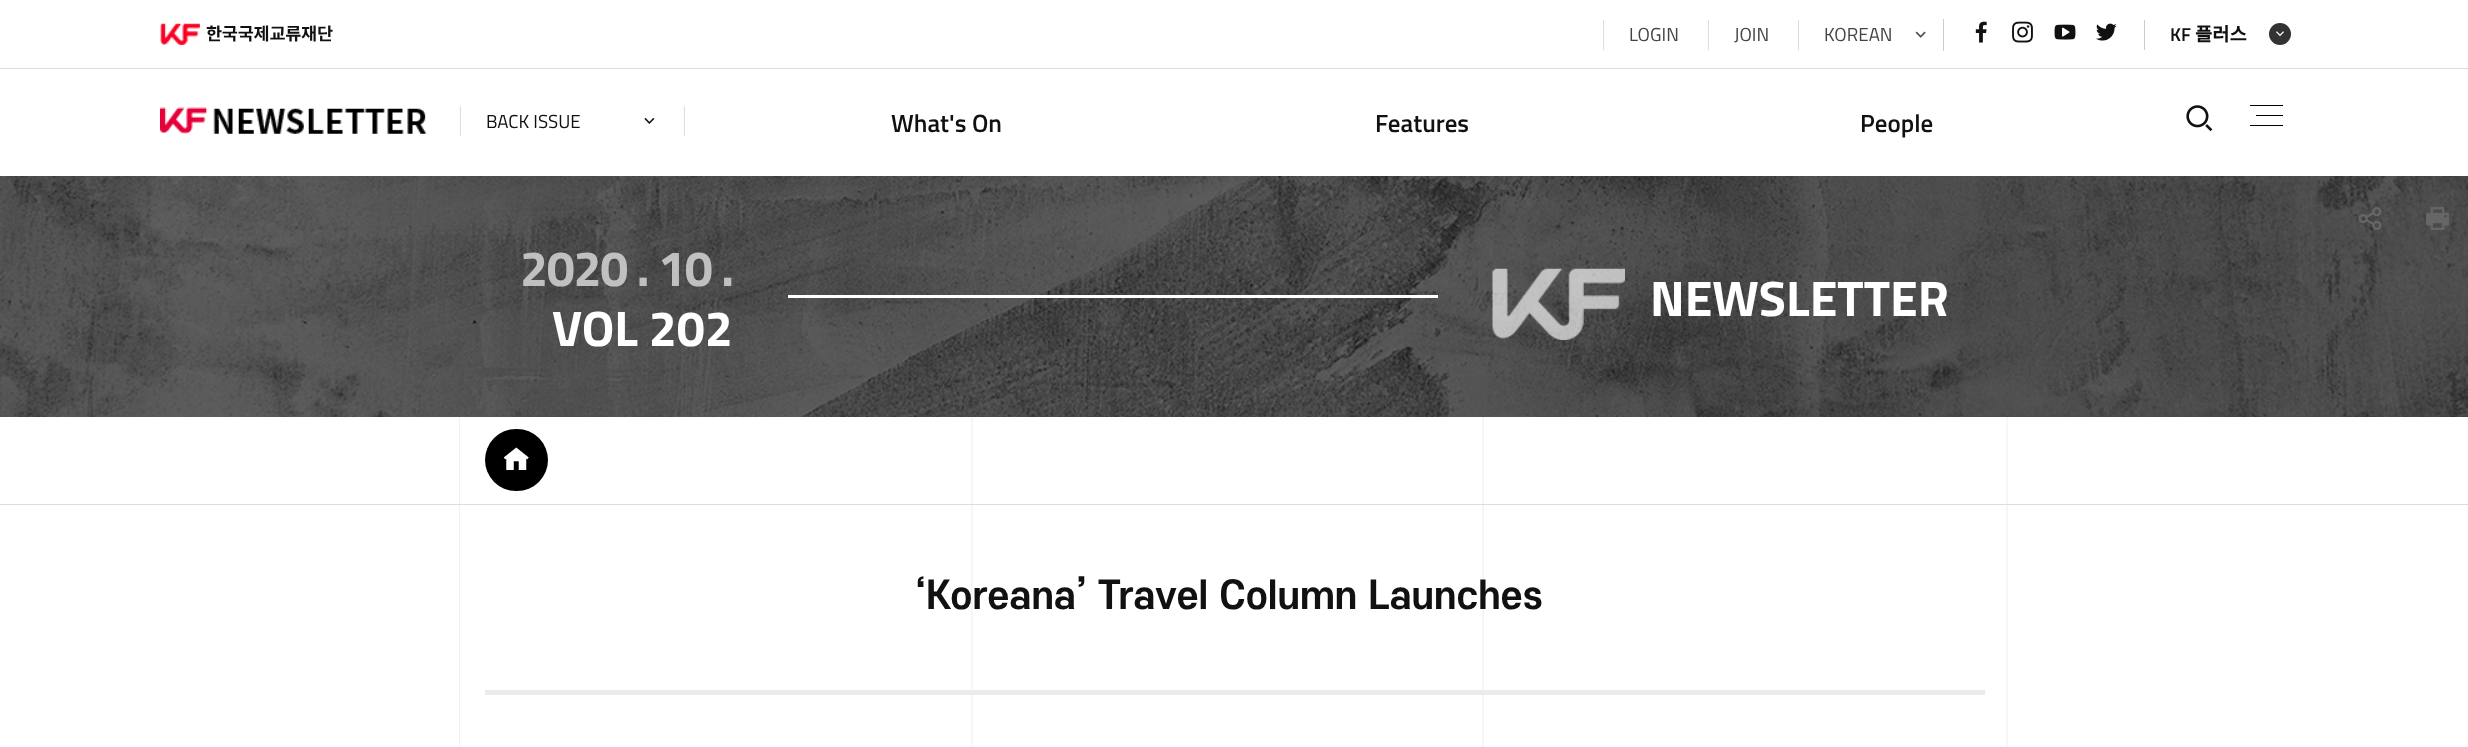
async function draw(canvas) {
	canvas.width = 2468;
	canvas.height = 747;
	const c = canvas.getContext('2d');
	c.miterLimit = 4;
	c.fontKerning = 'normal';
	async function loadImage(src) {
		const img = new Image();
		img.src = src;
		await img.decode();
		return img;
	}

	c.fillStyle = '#fff';
	c.fillRect(0, 0, 2468, 747);
	c.drawImage(await loadImage('img1.png'), 160, 23, 40, 22);
	c.letterSpacing = '-0.25px';
	c.font = 'bold 17.5px Noto Sans KR';
	c.fillStyle = '#111';
	c.fillText('한국국제교류재단', 206, 40);
	c.fillStyle = '#ddd';
	c.fillRect(1603, 20, 1, 30);
	c.letterSpacing = '0px';
	c.font = '18.75px Titillium Web';
	c.fillStyle = '#444';
	c.fillText('LOGIN', 1629, 41);
	c.fillStyle = '#ddd';
	c.fillRect(1708, 20, 1, 30);
	c.fillStyle = '#444';
	c.fillText('JOIN', 1734, 41);
	c.fillStyle = '#ddd';
	c.fillRect(1798, 20, 1, 30);
	c.fillStyle = '#444';
	c.fillText('KOREAN', 1824, 41);
	c.drawImage(await loadImage('img2.png'), 1915, 31, 11, 7);
	c.fillStyle = '#ccc';
	c.fillRect(1943, 19, 1, 32);
	c.drawImage(await loadImage('img3.png'), 1975, 21, 12, 22);
	c.drawImage(await loadImage('img4.png'), 2012, 21, 21, 22);
	c.drawImage(await loadImage('img5.png'), 2054, 24, 22, 16);
	c.drawImage(await loadImage('img6.png'), 2096, 23, 21, 18);
	c.fillRect(2144, 20, 1, 30);
	c.font = '600 18.75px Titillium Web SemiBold';
	c.fillStyle = '#111';
	c.fillText('KF', 2170, 41);
	c.font = 'bold 18.75px "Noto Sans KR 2"';
	c.fillText('플러스', 2195, 41);
	c.fillStyle = '#333';
	c.beginPath();
	c.arc(2280, 34, 11, 0, 2 * Math.PI);
	c.fill();
	c.drawImage(await loadImage('img7.png'), 2276, 31, 8, 6);
	c.fillStyle = '#ddd';
	c.fillRect(684, 106, 1, 30);
	c.fillRect(460, 106, 1, 30);
	c.font = '18.75px Titillium Web';
	c.fillStyle = '#111';
	c.fillText('BACK ISSUE', 486, 128);
	c.drawImage(await loadImage('img8.png'), 644, 117, 11, 7);
	c.fillStyle = '#ddd';
	c.fillRect(0, 68, 2468, 1);
	c.drawImage(await loadImage('img9.png'), 160, 107, 267, 27);
	c.font = '600 25px Titillium Web SemiBold';
	c.fillStyle = '#111';
	for (const [text, x, y] of [
		['What\'s On', 891, 132],
		['Features', 1375, 132],
		['People', 1860, 132],
	]) {
		c.fillText(text, x, y);
	}
	c.drawImage(await loadImage('img10.png'), 2186, 105, 27, 27);
	for (const [x, y, w, h, color] of [
		[2250, 105, 33, 1, '#000'],
		[2256, 115, 27, 1, '#000'],
		[2250, 125, 33, 1, '#000'],
	]) {
		c.fillStyle = color;
		c.fillRect(x, y, w, h);
	}
	c.drawImage(await loadImage('img11.png'), 459, 417, 1549, 330);
	c.fillStyle = '#ddd';
	c.fillRect(0, 504, 2468, 1);
	c.drawImage(await loadImage('img15.png'), 0, 176, 2468, 241);
	c.drawImage(await loadImage('img12.png'), 2358, 207, 24, 23);
	c.drawImage(await loadImage('img13.png'), 2426, 207, 23, 23);
	c.fillStyle = '#000';
	c.beginPath();
	c.roundRect(485, 429, 63, 62, 31);
	c.fill();
	c.drawImage(await loadImage('img14.png'), 503, 447, 26, 23);
	c.letterSpacing = '-1.25px';
	c.font = 'bold 50px Titillium Web';
	c.fillStyle = '#c0c0c0';
	c.fillText('2020 . 10 .', 520, 286);
	c.letterSpacing = '0px';
	c.fillStyle = '#fff';
	c.fillText('VOL 202', 552, 346);
	c.fillRect(788, 295, 650, 3);
	c.drawImage(await loadImage('img16.png'), 1492, 268, 133, 72);
	c.fillText('NEWSLETTER', 1650, 316);
	c.fillStyle = '#ebebea';
	c.fillRect(485, 690, 1500, 5);
	c.font = 'bold 37.5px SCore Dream';
	c.fillStyle = '#111';
	c.fillText('‘Koreana’ Travel Column Launches', 915, 609);
}

draw(document.querySelector('canvas'));
